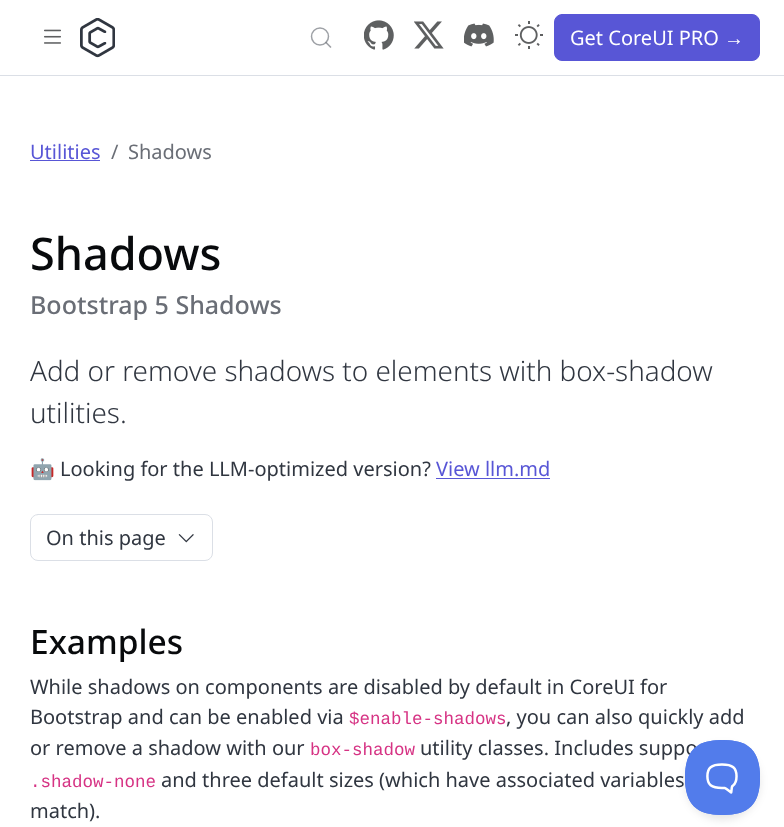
async function draw(canvas) {
	canvas.width = 784;
	canvas.height = 827;
	const c = canvas.getContext('2d');
	c.miterLimit = 4;
	c.fontKerning = 'normal';
	async function loadImage(src) {
		const img = new Image();
		img.src = src;
		await img.decode();
		return img;
	}

	c.fillStyle = '#fff';
	c.fillRect(0, 0, 784, 827);
	c.fillStyle = '#dbdfe6';
	c.fillRect(0, 75, 784, 1);
	c.drawImage(await loadImage('img1.png'), 44, 29, 17, 15);
	c.drawImage(await loadImage('img2.png'), 80, 18, 35, 40);
	c.beginPath();
	c.arc(320, 36.5, 8.5, 0, 2 * Math.PI);
	c.strokeStyle = '#9ea1a6';
	c.lineWidth = 1.5;
	c.stroke();
	c.beginPath();
	c.moveTo(330.5, 47);
	c.lineTo(326, 42.5);
	c.strokeStyle = '#71757cad';
	c.lineWidth = 1.7;
	c.lineCap = 'round';
	c.lineJoin = 'round';
	c.stroke();
	c.drawImage(await loadImage('img3.png'), 364, 20, 30, 30);
	c.drawImage(await loadImage('img4.png'), 414, 21, 30, 28);
	c.drawImage(await loadImage('img5.png'), 464, 23, 30, 24);
	c.drawImage(await loadImage('img6.png'), 515, 21, 28, 28);
	c.fillStyle = '#5856d6';
	c.beginPath();
	c.roundRect(554.5, 14.5, 205, 46, 7.5);
	c.fill();
	c.strokeStyle = '#5856d6';
	c.lineWidth = 1;
	c.lineJoin = 'miter';
	c.stroke();
	c.font = '20px Noto Sans';
	c.fillStyle = '#fff';
	c.fillText('Get CoreUI PRO', 570, 45);
	c.font = '20px Liberation Sans';
	c.fillText('→', 724, 45);
	c.font = '20px Noto Sans';
	c.fillStyle = '#5856d6';
	c.fillText('Utilities', 30, 159);
	c.fillRect(30, 160, 70, 1);
	c.fillStyle = '#6a6e76';
	c.fillText('/', 111, 159);
	c.fillText('Shadows', 128, 159);
	c.font = '500 45px Noto Sans';
	c.fillStyle = '#080a0c';
	c.fillText('Shadows', 30, 270);
	c.font = '500 25px Noto Sans';
	c.fillStyle = '#6a6e76';
	c.fillText('Bootstrap 5 Shadows', 30, 314);
	c.font = '300 27.85px Noto Sans';
	c.fillStyle = '#303640';
	c.fillText('Add or remove shadows to elements with box-shadow', 30, 381);
	c.fillText('utilities.', 30, 423);
	c.font = '20px Noto Color Emoji';
	c.fillText('🤖', 30, 476);
	c.font = '20px Noto Sans';
	c.fillText('Looking for the LLM-optimized version?', 60, 476);
	c.fillStyle = '#5856d6';
	c.fillText('View llm.md', 436, 476);
	c.fillRect(436, 478, 114, 1);
	c.beginPath();
	c.roundRect(30.5, 514.5, 182, 46, 7.5);
	c.strokeStyle = '#dbdfe6';
	c.stroke();
	c.fillStyle = '#303640';
	c.fillText('On this page', 46, 545);
	c.drawImage(await loadImage('img7.png'), 178, 534, 16, 9);
	c.font = '500 33.5px Noto Sans';
	c.fillStyle = '#080a0c';
	c.fillText('Examples', 30, 654);
	c.font = '20px Noto Sans';
	c.fillStyle = '#303640';
	c.fillText('While shadows on components are disabled by default in CoreUI for', 30, 694);
	c.fillText('Bootstrap and can be enabled via', 30, 724);
	c.font = '17.5px Liberation Mono';
	c.fillStyle = '#d63384';
	c.fillText('$enable-shadows', 349, 724);
	c.font = '20px Noto Sans';
	c.fillStyle = '#303640';
	c.fillText(', you can also quickly add', 506, 724);
	c.fillText('or remove a shadow with our', 30, 755);
	c.font = '17.5px Liberation Mono';
	c.fillStyle = '#d63384';
	c.fillText('box-shadow', 310, 755);
	c.font = '20px Noto Sans';
	c.fillStyle = '#303640';
	c.fillText('utility classes. Includes suppo', 420, 755);
	c.font = '17.5px Liberation Mono';
	c.fillStyle = '#d63384';
	c.fillText('.shadow-none', 30, 787);
	c.font = '20px Noto Sans';
	c.fillStyle = '#303640';
	c.fillText('and three default sizes (which have associated variables', 161, 787);
	c.fillText('match).', 30, 818);
	c.fillStyle = '#0000001a';
	c.filter = 'blur(4.5px)';
	c.beginPath();
	c.roundRect(685, 745, 75, 75, 37.5);
	c.fill();
	c.filter = 'none';
	c.drawImage(await loadImage('img8.png'), 685, 740, 75, 75);
}

draw(document.querySelector('canvas'));
